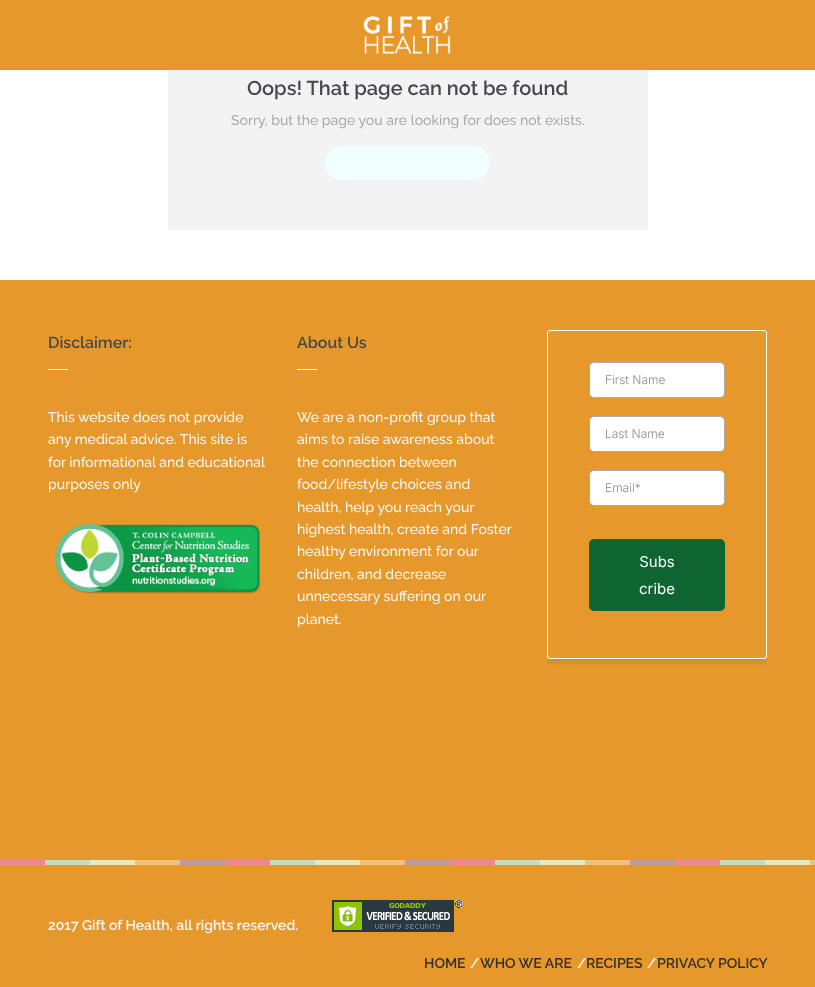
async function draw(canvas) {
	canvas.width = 815;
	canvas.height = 987;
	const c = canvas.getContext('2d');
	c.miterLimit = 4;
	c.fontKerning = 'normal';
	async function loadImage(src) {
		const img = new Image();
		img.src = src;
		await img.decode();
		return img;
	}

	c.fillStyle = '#fff';
	c.fillRect(0, 0, 815, 987);
	c.fillStyle = '#e6982b';
	c.fillRect(0, 0, 815, 70);
	c.drawImage(await loadImage('img1.png'), 363, 15, 88, 39);
	c.fillStyle = '#f3f3f3';
	c.fillRect(168, 70, 480, 160);
	c.font = '100 20px Raleway';
	c.fillStyle = '#44494b';
	c.fillText('Oops! That page can not be found', 247, 95);
	c.font = '100 14px "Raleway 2"';
	c.fillStyle = '#aaa';
	c.fillText('Sorry, but the page you are looking for does not exists.', 231, 125);
	c.fillStyle = '#f0ffff';
	c.beginPath();
	c.roundRect(325, 146, 165, 34, 17);
	c.fill();
	c.fillStyle = '#e6982b';
	c.fillRect(0, 280, 815, 580);
	c.font = '100 16px Raleway';
	c.fillStyle = '#44494b';
	c.fillText('Disclaimer:', 48, 348);
	c.fillStyle = '#f0ffff';
	c.fillRect(48, 369, 20, 1);
	c.font = '100 14px "Raleway 2"';
	c.fillStyle = '#f7f7f7';
	for (const [text, x, y] of [
		['This website does not provide', 48, 422],
		['any medical advice. This site is', 48, 444],
		['for informational and educational', 48, 467],
		['purposes only', 48, 489],
	]) {
		c.fillText(text, x, y);
	}
	c.drawImage(await loadImage('img2.png'), 55, 524, 205, 70);
	c.font = '100 16px Raleway';
	c.fillStyle = '#44494b';
	c.fillText('About Us', 297, 348);
	c.fillStyle = '#f0ffff';
	c.fillRect(297, 369, 20, 1);
	c.font = '100 14px "Raleway 2"';
	c.fillStyle = '#f7f7f7';
	for (const [text, x, y] of [
		['We are a non-profit group that', 297, 422],
		['aims to raise awareness about', 297, 444],
		['the connection between', 297, 467],
		['food/lifestyle choices and', 297, 489],
		['health, help you reach your', 297, 512],
		['highest health, create and Foster', 297, 534],
		['healthy environment for our', 297, 556],
		['children, and decrease', 297, 579],
		['unnecessary suffering on our', 297, 601],
		['planet.', 297, 624],
	]) {
		c.fillText(text, x, y);
	}
	c.drawImage(await loadImage('img3.png'), 547, 330, 220, 335);
	c.fillStyle = '#e6982b';
	c.fillRect(0, 865, 815, 122);
	c.drawImage(await loadImage('img4.png'), 0, 860, 815, 5);
	c.font = '100 14px Raleway';
	c.fillStyle = '#f7f7f7';
	c.fillText('2017 Gift of Health, all rights reserved.', 48, 930);
	c.drawImage(await loadImage('img5.png'), 332, 900, 131, 32);
	c.fillStyle = '#303030';
	c.fillText('HOME', 424, 968);
	c.fillStyle = '#f7f7f7';
	c.fillText('/', 470, 968);
	c.fillStyle = '#303030';
	c.fillText('WHO WE ARE', 480, 968);
	c.fillStyle = '#f7f7f7';
	c.fillText('/', 577, 968);
	c.fillStyle = '#303030';
	c.fillText('RECIPES', 586, 968);
	c.fillStyle = '#f7f7f7';
	c.fillText('/', 647, 968);
	c.fillStyle = '#303030';
	c.fillText('PRIVACY POLICY', 657, 968);
}

draw(document.querySelector('canvas'));
